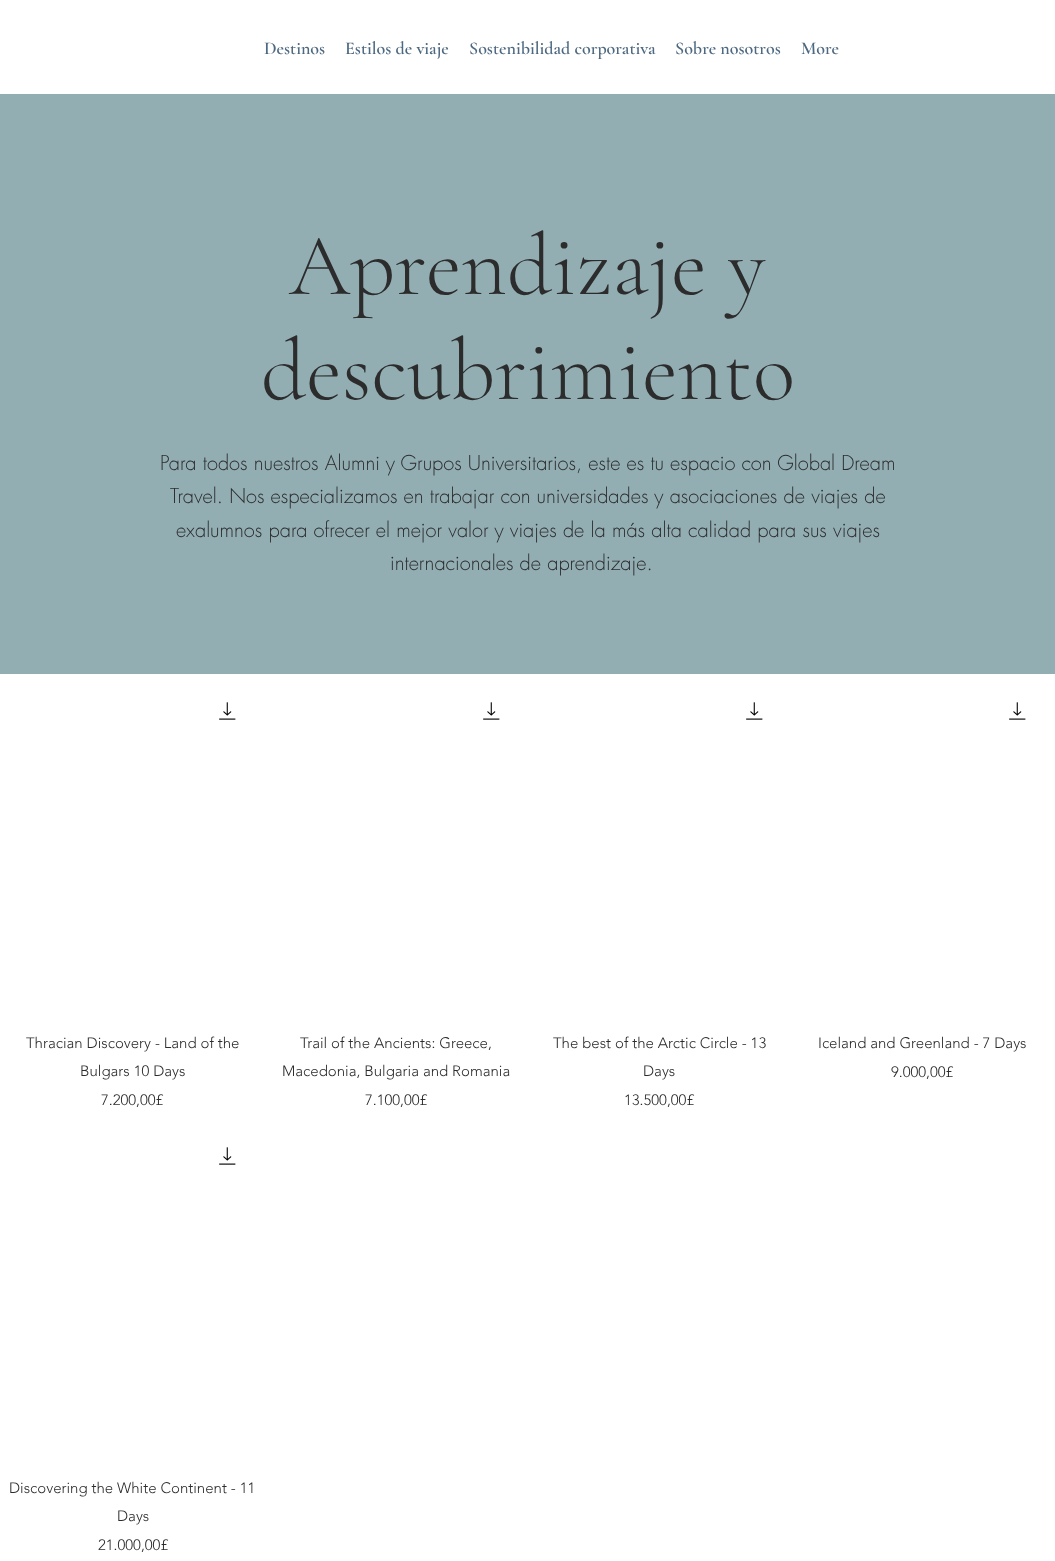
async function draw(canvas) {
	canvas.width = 1055;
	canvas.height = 1561;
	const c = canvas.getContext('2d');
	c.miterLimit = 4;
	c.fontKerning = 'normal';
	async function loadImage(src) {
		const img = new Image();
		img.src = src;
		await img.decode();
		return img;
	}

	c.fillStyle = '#fff';
	c.fillRect(0, 0, 1055, 1561);
	c.font = '600 18px Cormorant Garamond';
	c.fillStyle = '#4d6881';
	for (const [text, x, y] of [
		['Destinos', 264, 54],
		['Estilos de viaje', 345, 54],
		['Sostenibilidad corporativa', 469, 54],
		['Sobre nosotros', 675, 54],
		['More', 801, 54],
	]) {
		c.fillText(text, x, y);
	}
	c.fillStyle = '#92aeb3';
	c.fillRect(0, 94, 1055, 580);
	c.font = '300 88px Cormorant Garamond';
	c.fillStyle = '#2c2c2c';
	c.fillText('Aprendizaje y', 289, 294);
	c.fillText('descubrimiento', 261, 399);
	c.font = '300 20px futura';
	for (const [text, x, y] of [
		['Para todos nuestros Alumni y Grupos Universitarios, este es tu espacio con Global Dream', 160, 470],
		['Travel. Nos especializamos en trabajar con universidades y asociaciones de viajes de', 170, 503],
		['exalumnos para ofrecer el mejor valor y viajes de la más alta calidad para sus viajes', 176, 537],
		['internacionales de aprendizaje.', 390, 570],
	]) {
		c.fillText(text, x, y);
	}
	c.drawImage(await loadImage('img1.png'), 219, 702, 17, 18);
	c.font = '300 15px "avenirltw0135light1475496"';
	for (const [text, x, y] of [
		['Thracian Discovery - Land of the', 26, 1048],
		['Bulgars 10 Days', 80, 1076],
		['7.200,00£', 101, 1105],
	]) {
		c.fillText(text, x, y);
	}
	c.drawImage(await loadImage('img1.png'), 483, 702, 17, 18);
	for (const [text, x, y] of [
		['Trail of the Ancients: Greece,', 300, 1048],
		['Macedonia, Bulgaria and Romania', 282, 1076],
		['7.100,00£', 365, 1105],
	]) {
		c.fillText(text, x, y);
	}
	c.drawImage(await loadImage('img1.png'), 746, 702, 17, 18);
	for (const [text, x, y] of [
		['The best of the Arctic Circle - 13', 553, 1048],
		['Days', 643, 1076],
		['13.500,00£', 624, 1105],
	]) {
		c.fillText(text, x, y);
	}
	c.drawImage(await loadImage('img1.png'), 1009, 702, 17, 18);
	c.fillText('Iceland and Greenland - 7 Days', 818, 1048);
	c.fillText('9.000,00£', 891, 1077);
	c.drawImage(await loadImage('img1.png'), 219, 1147, 17, 18);
	for (const [text, x, y] of [
		['Discovering the White Continent - 11', 9, 1493],
		['Days', 117, 1521],
		['21.000,00£', 98, 1550],
	]) {
		c.fillText(text, x, y);
	}
}

draw(document.querySelector('canvas'));
